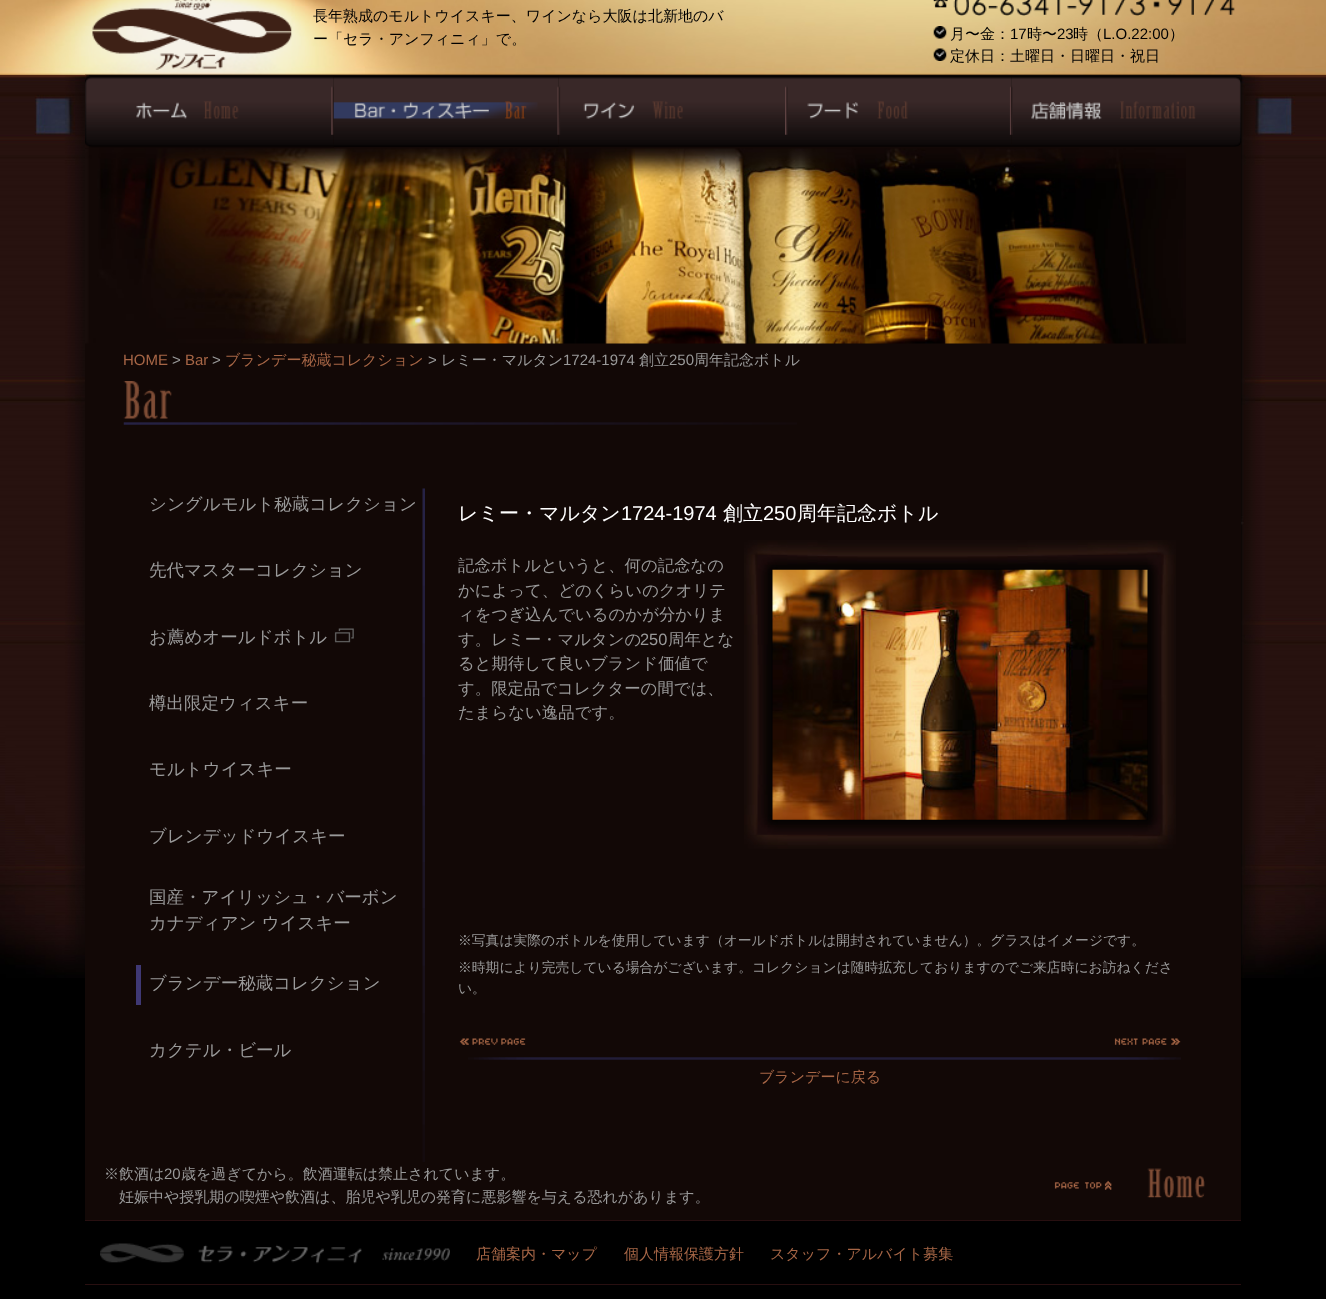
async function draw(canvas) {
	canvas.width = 1326;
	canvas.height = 1299;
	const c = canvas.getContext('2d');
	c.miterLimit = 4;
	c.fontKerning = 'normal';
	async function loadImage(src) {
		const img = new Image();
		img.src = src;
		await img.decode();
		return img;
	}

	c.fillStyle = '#000';
	c.fillRect(0, 0, 1326, 1299);
	c.drawImage(await loadImage('img1.png'), 0, 74, 1326, 1);
	c.drawImage(await loadImage('img2.png'), 0, 74, 1326, 904);
	c.drawImage(await loadImage('img3.png'), 0, 0, 1326, 75);
	c.drawImage(await loadImage('img4.png'), 92, 0, 200, 70);
	c.font = '500 15px WenQuanYi Zen Hei';
	c.fillText('長年熟成のモルトウイスキー、ワインなら大阪は北新地のバ', 313, 21);
	c.fillText('ー「セラ・アンフィニィ」で。', 313, 44);
	c.drawImage(await loadImage('img5.png'), 933, 0, 302, 16);
	c.drawImage(await loadImage('img6.png'), 933, 26, 14, 13);
	c.fillText('月〜金：', 950, 39);
	c.font = '15px Liberation Sans';
	c.fillText('17', 1010, 39);
	c.font = '500 15px WenQuanYi Zen Hei';
	c.fillText('時〜', 1027, 39);
	c.font = '15px Liberation Sans';
	c.fillText('23', 1057, 39);
	c.font = '500 15px WenQuanYi Zen Hei';
	c.fillText('時（', 1073, 39);
	c.font = '15px Liberation Sans';
	c.fillText('L.O.22:00', 1103, 39);
	c.font = '500 15px WenQuanYi Zen Hei';
	c.fillText('）', 1169, 39);
	c.drawImage(await loadImage('img7.png'), 933, 48, 14, 13);
	c.fillText('定休日：土曜日・日曜日・祝日', 950, 61);
	c.fillStyle = '#120806';
	c.fillRect(85, 75, 1156, 1145);
	c.drawImage(await loadImage('img8.png'), 85, 74, 249, 74);
	c.drawImage(await loadImage('img9.png'), 333, 74, 226, 73);
	c.drawImage(await loadImage('img10.png'), 558, 74, 227, 73);
	c.drawImage(await loadImage('img11.png'), 785, 74, 227, 73);
	c.drawImage(await loadImage('img12.png'), 1011, 74, 231, 73);
	c.drawImage(await loadImage('img13.png'), 85, 148, 1101, 196);
	c.font = '15px Liberation Sans';
	c.fillStyle = '#a76646';
	c.fillText('HOME', 123, 365);
	c.fillStyle = '#999';
	c.fillText('>', 172, 365);
	c.fillStyle = '#a76646';
	c.fillText('Bar', 185, 365);
	c.fillStyle = '#999';
	c.fillText('>', 212, 365);
	c.font = '500 15px WenQuanYi Zen Hei';
	c.fillStyle = '#a76646';
	c.fillText('ブランデー秘蔵コレクション', 225, 365);
	c.font = '15px Liberation Sans';
	c.fillStyle = '#999';
	c.fillText('>', 428, 365);
	c.font = '500 15px WenQuanYi Zen Hei';
	c.fillText('レミー・マルタン', 441, 365);
	c.font = '15px Liberation Sans';
	c.fillText('1724-1974', 563, 365);
	c.font = '500 15px WenQuanYi Zen Hei';
	c.fillText('創立', 639, 365);
	c.font = '15px Liberation Sans';
	c.fillText('250', 669, 365);
	c.font = '500 15px WenQuanYi Zen Hei';
	c.fillText('周年記念ボトル', 694, 365);
	c.drawImage(await loadImage('img14.png'), 123, 381, 674, 44);
	c.drawImage(await loadImage('img15.png'), 422, 488, 3, 674);
	c.font = '500 17.5px WenQuanYi Zen Hei';
	for (const [text, x, y] of [
		['シングルモルト秘蔵コレクション', 149, 510],
		['先代マスターコレクション', 149, 576],
		['お薦めオールドボトル', 149, 643],
	]) {
		c.fillText(text, x, y);
	}
	c.drawImage(await loadImage('img16.png'), 334, 628, 20, 15);
	for (const [text, x, y] of [
		['樽出限定ウィスキー', 149, 709],
		['モルトウイスキー', 149, 775],
		['ブレンデッドウイスキー', 149, 842],
		['国産・アイリッシュ・バーボン', 149, 903],
		['カナディアン ウイスキー', 149, 929],
	]) {
		c.fillText(text, x, y);
	}
	c.fillStyle = '#3f3874';
	c.fillRect(136, 965, 5, 40);
	c.fillStyle = '#999';
	c.fillText('ブランデー秘蔵コレクション', 149, 989);
	c.fillText('カクテル・ビール', 149, 1056);
	c.font = '500 20px WenQuanYi Zen Hei';
	c.fillStyle = '#fff';
	c.fillText('レミー・マルタン', 458, 520);
	c.font = '20px Liberation Sans';
	c.fillText('1724-1974', 621, 520);
	c.font = '500 20px WenQuanYi Zen Hei';
	c.fillText('創立', 723, 520);
	c.font = '20px Liberation Sans';
	c.fillText('250', 763, 520);
	c.font = '500 20px WenQuanYi Zen Hei';
	c.fillText('周年記念ボトル', 797, 520);
	c.font = '500 16.4px WenQuanYi Zen Hei';
	c.fillStyle = '#999';
	for (const [text, x, y] of [
		['記念ボトルというと、何の記念なの', 458, 571],
		['かによって、どのくらいのクオリテ', 458, 596],
		['ィをつぎ込んでいるのかが分かりま', 458, 620],
		['す。レミー・マルタンの', 458, 645],
	]) {
		c.fillText(text, x, y);
	}
	c.font = '16.4px Liberation Sans';
	c.fillText('250', 640, 645);
	c.font = '500 16.4px WenQuanYi Zen Hei';
	for (const [text, x, y] of [
		['周年とな', 668, 645],
		['ると期待して良いブランド価値で', 458, 669],
		['す。限定品でコレクターの間では、', 458, 694],
		['たまらない逸品です。', 458, 718],
	]) {
		c.fillText(text, x, y);
	}
	c.drawImage(await loadImage('img17.png'), 744, 540, 432, 309);
	c.drawImage(await loadImage('img18.png'), 772, 569, 376, 251);
	c.font = '500 13.8px WenQuanYi Zen Hei';
	for (const [text, x, y] of [
		['※写真は実際のボトルを使用しています（オールドボトルは開封されていません）。グラスはイメージです。', 458, 945],
		['※時期により完売している場合がございます。コレクションは随時拡充しておりますのでご来店時にお訪ねくださ', 458, 972],
		['い。', 458, 993],
	]) {
		c.fillText(text, x, y);
	}
	c.drawImage(await loadImage('img19.png'), 468, 1057, 713, 3);
	c.drawImage(await loadImage('img20.png'), 459, 1038, 67, 7);
	c.drawImage(await loadImage('img21.png'), 1114, 1038, 67, 7);
	c.font = '500 15px WenQuanYi Zen Hei';
	c.fillStyle = '#a76646';
	c.fillText('ブランデーに戻る', 759, 1082);
	c.fillStyle = '#999';
	c.fillText('※飲酒は', 104, 1179);
	c.font = '15px Liberation Sans';
	c.fillText('20', 164, 1179);
	c.font = '500 15px WenQuanYi Zen Hei';
	c.fillText('歳を過ぎてから。飲酒運転は禁止されています。', 181, 1179);
	c.fillText('妊娠中や授乳期の喫煙や飲酒は、胎児や乳児の発育に悪影響を与える恐れがあります。', 119, 1202);
	c.drawImage(await loadImage('img22.png'), 1054, 1180, 58, 10);
	c.drawImage(await loadImage('img23.png'), 1147, 1168, 58, 30);
	c.fillStyle = '#280f10';
	c.fillRect(85, 1220, 1156, 1);
	c.fillRect(85, 1284, 1156, 1);
	c.drawImage(await loadImage('img24.png'), 100, 1243, 350, 21);
	c.fillStyle = '#a76646';
	for (const [text, x, y] of [
		['店舗案内・マップ', 476, 1259],
		['個人情報保護方針', 624, 1259],
		['スタッフ・アルバイト募集', 770, 1259],
	]) {
		c.fillText(text, x, y);
	}
}

draw(document.querySelector('canvas'));
